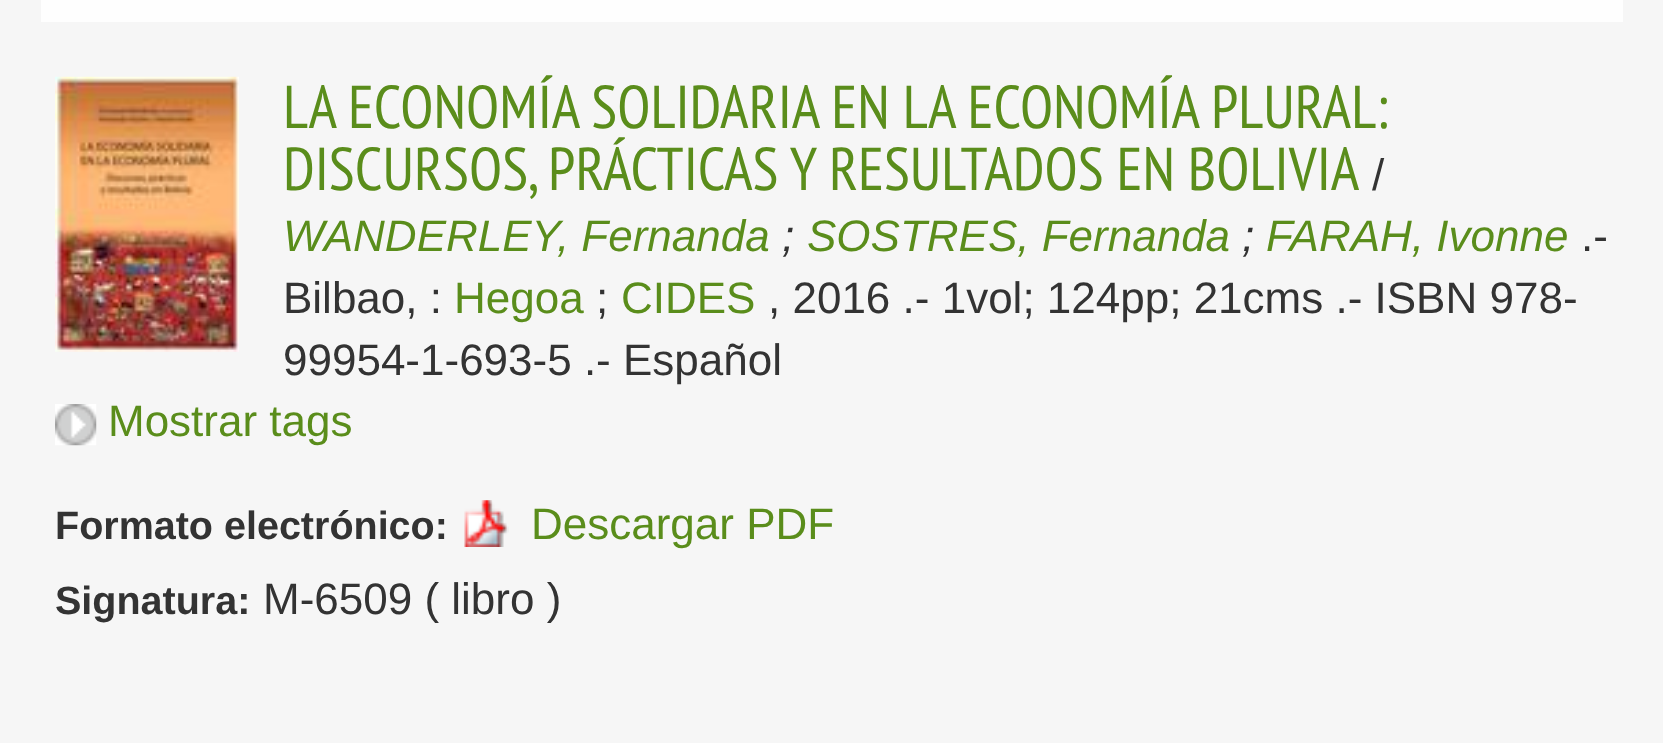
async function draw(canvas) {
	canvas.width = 1663;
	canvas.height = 743;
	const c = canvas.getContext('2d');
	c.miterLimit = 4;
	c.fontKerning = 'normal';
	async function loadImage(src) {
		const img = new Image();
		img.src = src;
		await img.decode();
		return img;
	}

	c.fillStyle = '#f6f6f6';
	c.fillRect(0, 0, 1663, 743);
	c.fillStyle = '#fefefe';
	c.fillRect(41, 0, 1582, 22);
	c.font = '60.5px PT Sans Narrow';
	c.fillStyle = '#5a8d1b';
	c.fillText('LA ECONOMÍA SOLIDARIA EN LA ECONOMÍA PLURAL:', 283, 128);
	c.fillText('DISCURSOS, PRÁCTICAS Y RESULTADOS EN BOLIVIA', 283, 190);
	c.font = '44px Liberation Sans';
	c.fillStyle = '#333';
	c.fillText('/', 1372, 190);
	c.font = 'italic 44px Liberation Sans';
	c.fillStyle = '#5a8d1b';
	c.fillText('WANDERLEY, Fernanda', 283, 251);
	c.fillStyle = '#333';
	c.fillText(';', 782, 251);
	c.fillStyle = '#5a8d1b';
	c.fillText('SOSTRES, Fernanda', 807, 251);
	c.fillStyle = '#333';
	c.fillText(';', 1242, 251);
	c.fillStyle = '#5a8d1b';
	c.fillText('FARAH, Ivonne', 1266, 251);
	c.font = '44px Liberation Sans';
	c.fillStyle = '#333';
	c.fillText('.-', 1581, 251);
	c.fillText('Bilbao, :', 283, 313);
	c.fillStyle = '#5a8d1b';
	c.fillText('Hegoa', 454, 313);
	c.fillStyle = '#333';
	c.fillText(';', 596, 313);
	c.fillStyle = '#5a8d1b';
	c.fillText('CIDES', 621, 313);
	c.fillStyle = '#333';
	c.fillText(', 2016 .- 1vol; 124pp; 21cms .- ISBN 978-', 768, 313);
	c.fillText('99954-1-693-5 .- Español', 283, 375);
	c.drawImage(await loadImage('img1.png'), 55, 404, 42, 42);
	c.fillStyle = '#5a8d1b';
	c.fillText('Mostrar tags', 108, 436);
	c.font = 'bold 39.5px Liberation Sans';
	c.fillStyle = '#333';
	c.fillText('Formato electrónico:', 55, 539);
	c.drawImage(await loadImage('img2.png'), 464, 500, 45, 47);
	c.font = '44px Liberation Sans';
	c.fillStyle = '#5a8d1b';
	c.fillText('Descargar PDF', 531, 539);
	c.font = 'bold 39.5px Liberation Sans';
	c.fillStyle = '#333';
	c.fillText('Signatura:', 55, 614);
	c.font = '44px Liberation Sans';
	c.fillText('M-6509 ( libro )', 263, 614);
	c.drawImage(await loadImage('img3.png'), 55, 76, 184, 276);
}

draw(document.querySelector('canvas'));
